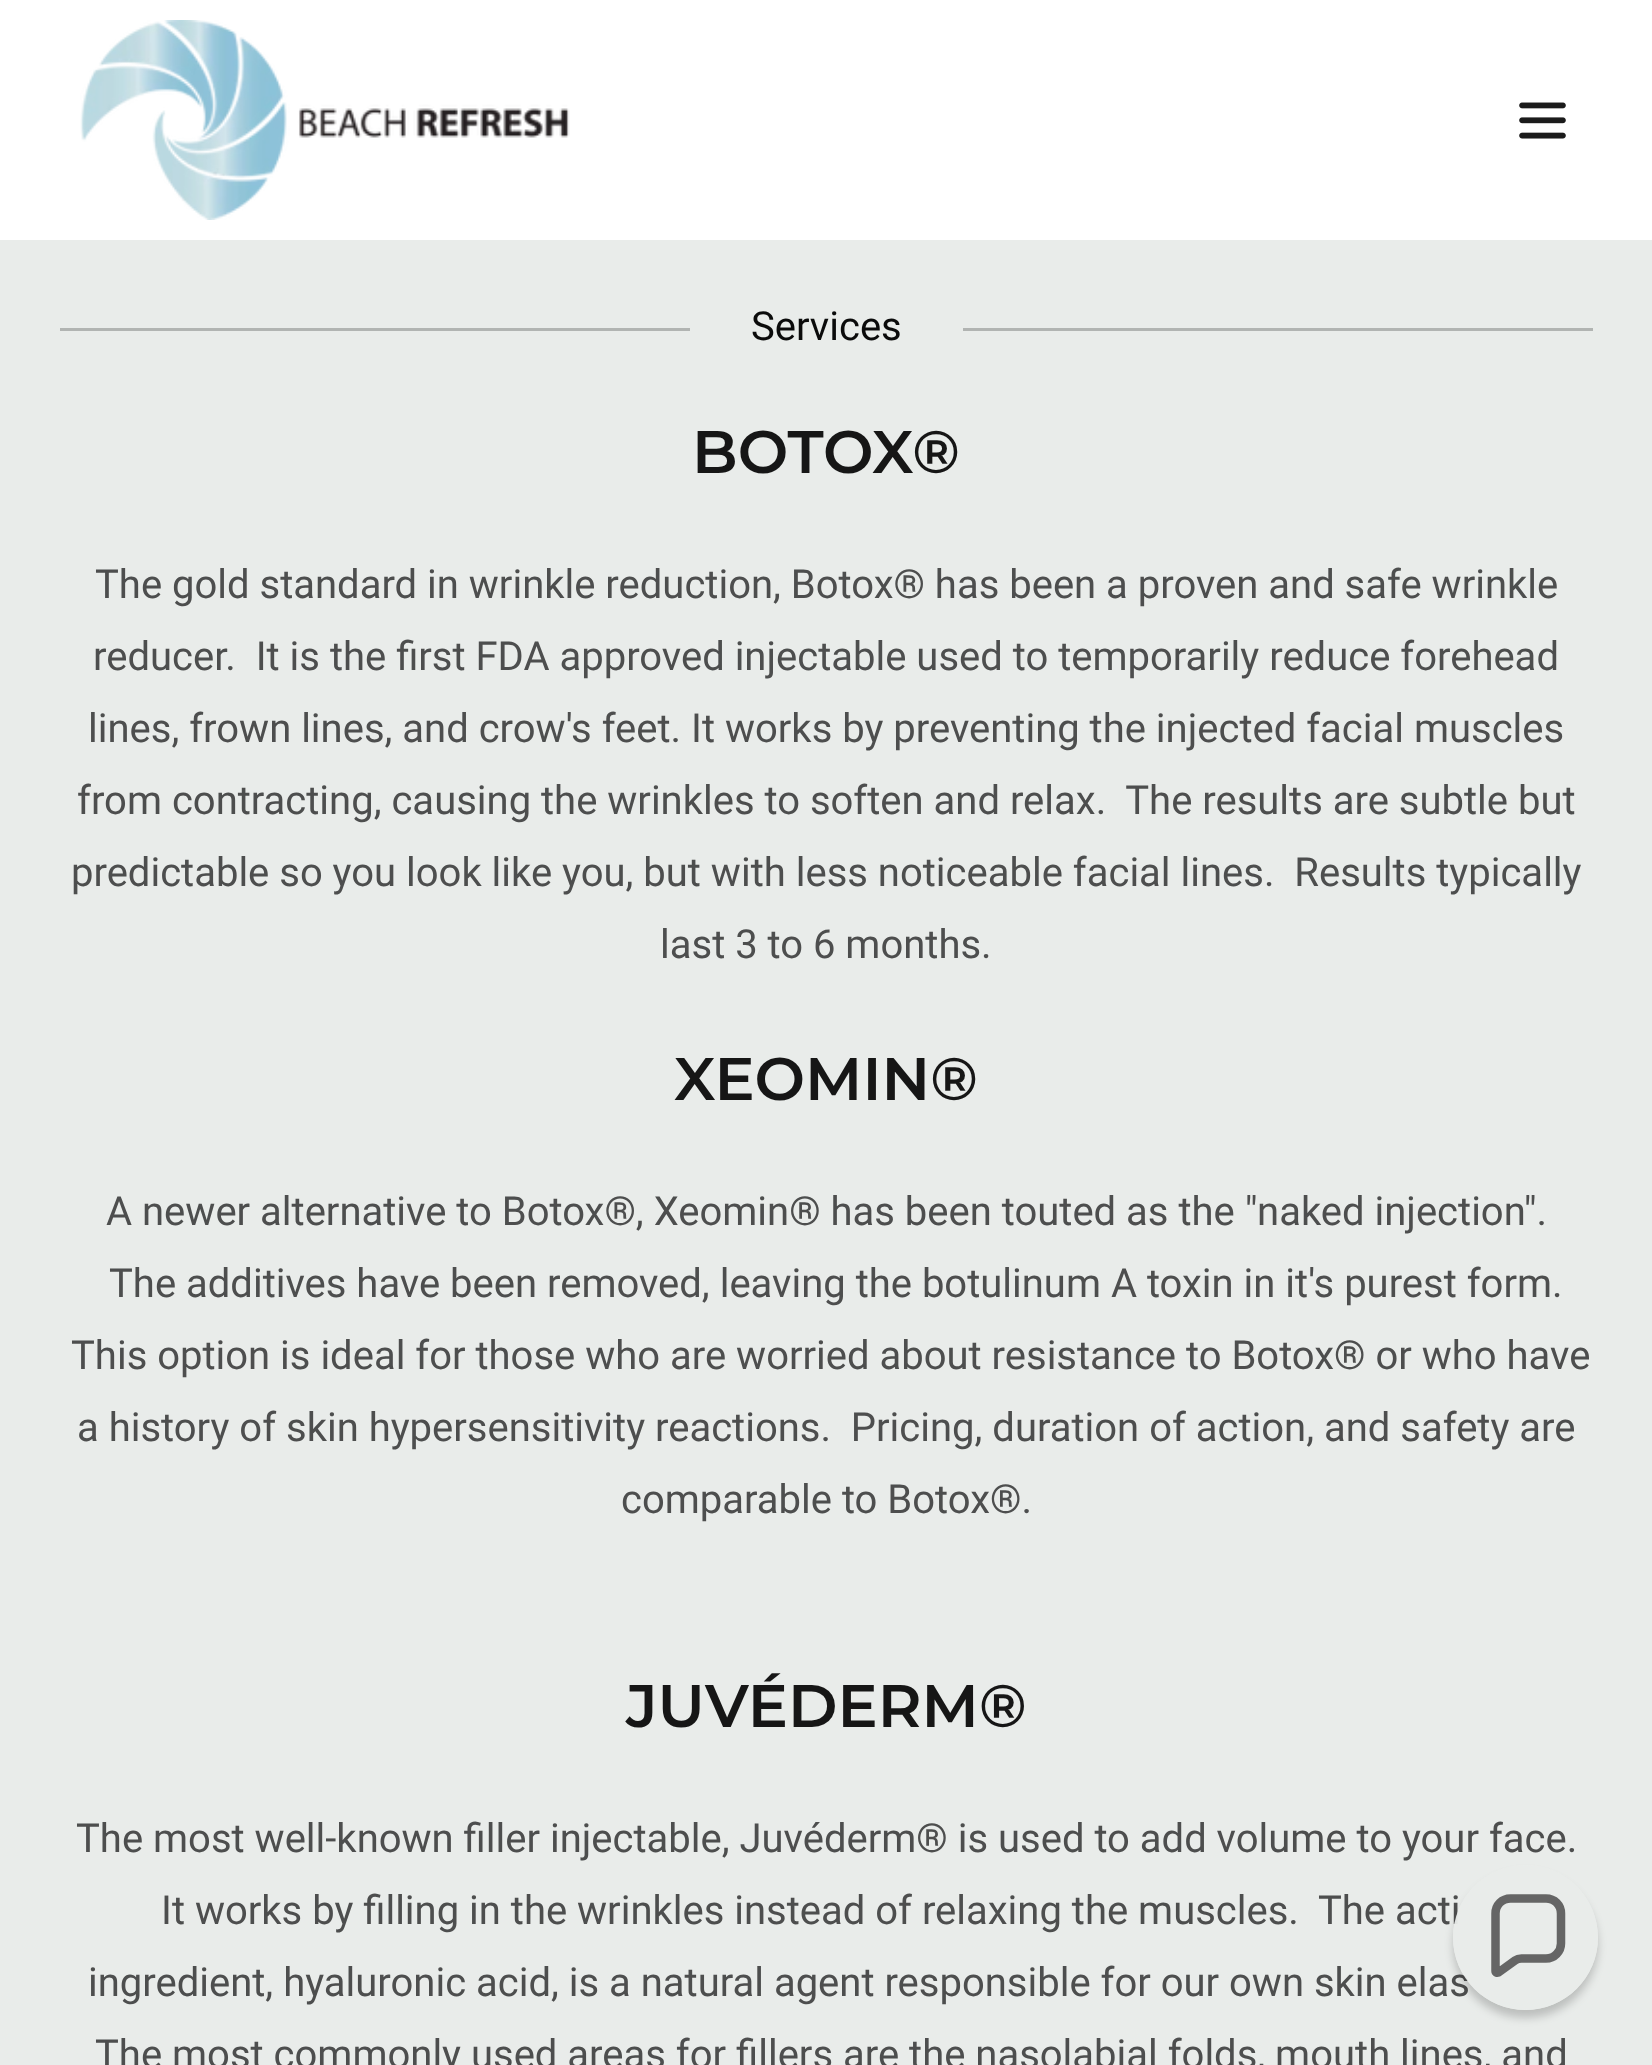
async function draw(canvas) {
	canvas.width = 1652;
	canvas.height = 2065;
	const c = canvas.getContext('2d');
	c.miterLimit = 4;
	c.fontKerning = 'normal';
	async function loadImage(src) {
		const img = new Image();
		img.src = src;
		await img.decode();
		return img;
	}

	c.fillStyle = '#fff';
	c.fillRect(0, 0, 1652, 2065);
	c.drawImage(await loadImage('img1.png'), 80, 20, 490, 200);
	c.drawImage(await loadImage('img2.png'), 1519, 102, 47, 37);
	c.fillStyle = '#e9ecea';
	c.fillRect(0, 240, 1652, 1825);
	c.fillStyle = '#b1b4b2';
	c.fillRect(60, 328, 630, 3);
	c.font = '40px Roboto';
	c.fillStyle = '#0b0b0b';
	c.fillText('Services', 751, 340);
	c.fillStyle = '#b1b4b2';
	c.fillRect(963, 328, 630, 3);
	c.font = '600 60px Montserrat';
	c.fillStyle = '#161616';
	c.fillText('BOTOX®', 692, 473);
	c.font = '40px Roboto';
	c.fillStyle = '#4d4e4e';
	for (const [text, x, y] of [
		['The gold standard in wrinkle reduction, Botox® has been a proven and safe wrinkle', 95, 598],
		['reducer.  It is the first FDA approved injectable used to temporarily reduce forehead', 93, 670],
		['lines, frown lines, and crow\'s feet. It works by preventing the injected facial muscles', 88, 742],
		['from contracting, causing the wrinkles to soften and relax.  The results are subtle but', 77, 814],
		['predictable so you look like you, but with less noticeable facial lines.  Results typically', 71, 886],
		['last 3 to 6 months.', 660, 958],
	]) {
		c.fillText(text, x, y);
	}
	c.font = '600 60px Montserrat';
	c.fillStyle = '#161616';
	c.fillText('XEOMIN®', 674, 1100);
	c.font = '40px Roboto';
	c.fillStyle = '#4d4e4e';
	for (const [text, x, y] of [
		['A newer alternative to Botox®, Xeomin® has been touted as the "naked injection".', 106, 1225],
		['The additives have been removed, leaving the botulinum A toxin in it\'s purest form.', 109, 1297],
		['This option is ideal for those who are worried about resistance to Botox® or who have', 71, 1369],
		['a history of skin hypersensitivity reactions.  Pricing, duration of action, and safety are', 77, 1441],
		['comparable to Botox®.', 621, 1513],
	]) {
		c.fillText(text, x, y);
	}
	c.font = '600 60px Montserrat';
	c.fillStyle = '#161616';
	c.fillText('JUVÉDERM®', 626, 1727);
	c.font = '40px Roboto';
	c.fillStyle = '#4d4e4e';
	for (const [text, x, y] of [
		['The most well-known filler injectable, Juvéderm® is used to add volume to your face.', 76, 1852],
		['It works by filling in the wrinkles instead of relaxing the muscles.  The acti', 161, 1924],
		['ingredient, hyaluronic acid, is a natural agent responsible for our own skin elas', 88, 1996],
		['The most commonly used areas for fillers are the nasolabial folds, mouth lines, and', 95, 2068],
	]) {
		c.fillText(text, x, y);
	}
	c.save();
	c.beginPath();
	c.moveTo(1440, 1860);
	c.lineTo(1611, 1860);
	c.lineTo(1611, 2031);
	c.lineTo(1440, 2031);
	c.closePath();
	c.moveTo(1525.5, 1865);
	c.bezierCurveTo(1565.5, 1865, 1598, 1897.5, 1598, 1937.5);
	c.bezierCurveTo(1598, 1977.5, 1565.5, 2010, 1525.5, 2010);
	c.bezierCurveTo(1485.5, 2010, 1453, 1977.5, 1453, 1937.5);
	c.bezierCurveTo(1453, 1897.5, 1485.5, 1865, 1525.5, 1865);
	c.closePath();
	c.clip('evenodd');
	c.fillStyle = '#00000030';
	c.filter = 'blur(4px)';
	c.beginPath();
	c.roundRect(1453, 1873, 145, 145, 72.5);
	c.fill();
	c.filter = 'none';
	c.restore();
	c.fillStyle = '#e9eceaf2';
	c.beginPath();
	c.arc(1525.5, 1937.5, 72.5, 0, 2 * Math.PI);
	c.fill();
	c.beginPath();
	c.moveTo(1546, 1898.5);
	c.lineTo(1510.5, 1898.5);
	c.bezierCurveTo(1502, 1898.5, 1495.5, 1905, 1495.5, 1913.5);
	c.lineTo(1495.5, 1971);
	c.bezierCurveTo(1495.5, 1972.5, 1497, 1973, 1498.5, 1972.5);
	c.lineTo(1515, 1960.5);
	c.bezierCurveTo(1517, 1959, 1519, 1958.5, 1521.5, 1958.5);
	c.lineTo(1546, 1958.5);
	c.bezierCurveTo(1554.5, 1958.5, 1561, 1951.5, 1561, 1943.5);
	c.lineTo(1561, 1913.5);
	c.bezierCurveTo(1561, 1905, 1554.5, 1898.5, 1546, 1898.5);
	c.closePath();
	c.strokeStyle = '#5e5e5ef2';
	c.lineWidth = 8.5;
	c.stroke();
}

draw(document.querySelector('canvas'));
